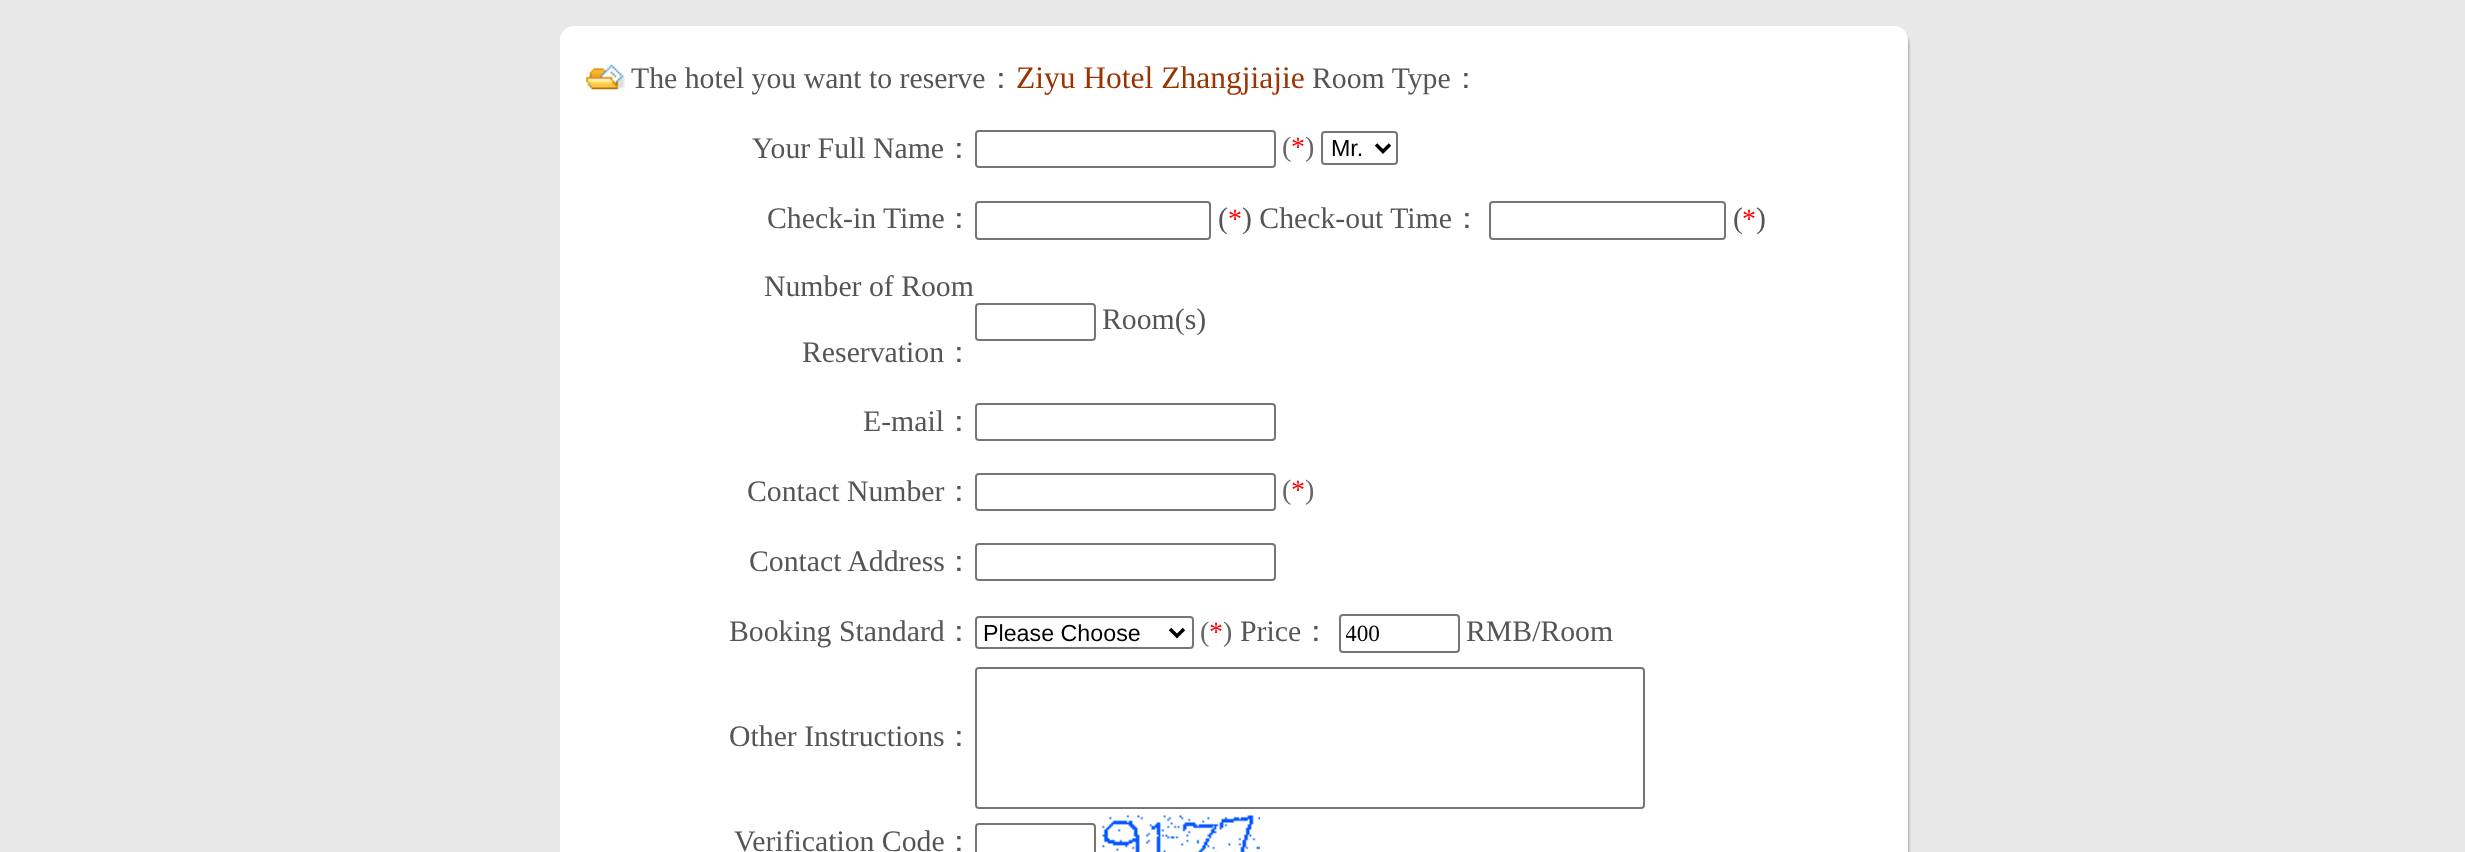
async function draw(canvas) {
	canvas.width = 2465;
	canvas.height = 852;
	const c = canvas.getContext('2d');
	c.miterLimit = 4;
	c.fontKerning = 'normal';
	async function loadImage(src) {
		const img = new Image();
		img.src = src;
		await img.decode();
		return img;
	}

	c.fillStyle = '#e8e8e8';
	c.fillRect(0, 0, 2465, 852);
	c.fillStyle = '#0000004d';
	c.filter = 'blur(1px)';
	c.beginPath();
	c.roundRect(562, 30, 1347, 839, 14);
	c.fill();
	c.filter = 'none';
	c.fillStyle = '#fff';
	c.beginPath();
	c.roundRect(560, 26, 1348, 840, 14);
	c.fill();
	c.drawImage(await loadImage('img1.png'), 586, 64, 39, 26);
	c.font = '29.75px Liberation Serif';
	c.fillStyle = '#555';
	c.fillText('The hotel you want to reserve', 631, 88);
	c.font = '500 29.75px WenQuanYi Zen Hei';
	c.fillText('：', 986, 88);
	c.font = '31.5px Liberation Serif';
	c.fillStyle = '#930';
	c.fillText('Ziyu Hotel Zhangjiajie', 1016, 88);
	c.font = '29.75px Liberation Serif';
	c.fillStyle = '#555';
	c.fillText('Room Type', 1312, 88);
	c.font = '500 29.75px WenQuanYi Zen Hei';
	c.fillText('：', 1451, 88);
	c.font = '29.75px Liberation Serif';
	c.fillText('Your Full Name', 752, 158);
	c.font = '500 29.75px WenQuanYi Zen Hei';
	c.fillText('：', 944, 158);
	c.beginPath();
	c.roundRect(976, 131, 299, 36, 3);
	c.strokeStyle = '#767676';
	c.lineWidth = 2;
	c.stroke();
	c.font = '28px Liberation Serif';
	c.fillStyle = '#666';
	c.fillText('(', 1282, 156);
	c.fillStyle = '#f00';
	c.fillText('*', 1291, 156);
	c.fillStyle = '#666';
	c.fillText(')', 1305, 156);
	c.beginPath();
	c.roundRect(1322, 132, 75, 32, 3);
	c.stroke();
	c.beginPath();
	c.moveTo(1376, 144.5);
	c.lineTo(1383, 151.5);
	c.lineTo(1390, 144.5);
	c.strokeStyle = '#000';
	c.lineWidth = 3.5;
	c.stroke();
	c.font = '23.25px Liberation Sans';
	c.fillStyle = '#000';
	c.fillText('Mr.', 1331, 156);
	c.font = '29.75px Liberation Serif';
	c.fillStyle = '#555';
	c.fillText('Check-in Time', 767, 228);
	c.font = '500 29.75px WenQuanYi Zen Hei';
	c.fillText('：', 944, 228);
	c.beginPath();
	c.roundRect(976, 202, 234, 37, 3);
	c.strokeStyle = '#767676';
	c.lineWidth = 2;
	c.stroke();
	c.font = '29.75px Liberation Serif';
	c.fillText('(', 1218, 228);
	c.font = '28px Liberation Serif';
	c.fillStyle = '#f00';
	c.fillText('*', 1228, 228);
	c.font = '29.75px Liberation Serif';
	c.fillStyle = '#555';
	c.fillText(') Check-out Time', 1242, 228);
	c.font = '500 29.75px WenQuanYi Zen Hei';
	c.fillText('：', 1452, 228);
	c.beginPath();
	c.roundRect(1490, 202, 235, 37, 3);
	c.stroke();
	c.font = '29.75px Liberation Serif';
	c.fillText('(', 1733, 228);
	c.font = '28px Liberation Serif';
	c.fillStyle = '#f00';
	c.fillText('*', 1742, 228);
	c.font = '29.75px Liberation Serif';
	c.fillStyle = '#555';
	for (const [text, x, y] of [
		[')', 1756, 228],
		['Number of Room', 764, 296],
		['Reservation', 802, 362],
	]) {
		c.fillText(text, x, y);
	}
	c.font = '500 29.75px WenQuanYi Zen Hei';
	c.fillText('：', 944, 362);
	c.beginPath();
	c.roundRect(976, 304, 119, 36, 3);
	c.stroke();
	c.font = '29.75px Liberation Serif';
	c.fillText('Room(s)', 1102, 329);
	c.fillText('E-mail', 863, 431);
	c.font = '500 29.75px WenQuanYi Zen Hei';
	c.fillText('：', 944, 431);
	c.beginPath();
	c.roundRect(976, 404, 299, 36, 3);
	c.stroke();
	c.font = '29.75px Liberation Serif';
	c.fillText('Contact Number', 747, 501);
	c.font = '500 29.75px WenQuanYi Zen Hei';
	c.fillText('：', 944, 501);
	c.beginPath();
	c.roundRect(976, 474, 299, 36, 3);
	c.stroke();
	c.font = '28px Liberation Serif';
	c.fillStyle = '#666';
	c.fillText('(', 1282, 499);
	c.fillStyle = '#f00';
	c.fillText('*', 1291, 499);
	c.fillStyle = '#666';
	c.fillText(')', 1305, 499);
	c.font = '29.75px Liberation Serif';
	c.fillStyle = '#555';
	c.fillText('Contact Address', 749, 571);
	c.font = '500 29.75px WenQuanYi Zen Hei';
	c.fillText('：', 944, 571);
	c.beginPath();
	c.roundRect(976, 544, 299, 36, 3);
	c.stroke();
	c.font = '29.75px Liberation Serif';
	c.fillText('Booking Standard', 729, 641);
	c.font = '500 29.75px WenQuanYi Zen Hei';
	c.fillText('：', 944, 641);
	c.beginPath();
	c.roundRect(976, 617, 217, 31, 3);
	c.stroke();
	c.beginPath();
	c.moveTo(1170, 629);
	c.lineTo(1177, 636);
	c.lineTo(1184, 629);
	c.strokeStyle = '#000';
	c.lineWidth = 3.5;
	c.stroke();
	c.font = '23.25px Liberation Sans';
	c.fillStyle = '#000';
	c.fillText('Please Choose', 983, 641);
	c.font = '28px Liberation Serif';
	c.fillStyle = '#666';
	c.fillText('(', 1200, 641);
	c.fillStyle = '#f00';
	c.fillText('*', 1209, 641);
	c.fillStyle = '#666';
	c.fillText(')', 1223, 641);
	c.font = '29.75px Liberation Serif';
	c.fillStyle = '#555';
	c.fillText('Price', 1240, 641);
	c.font = '500 29.75px WenQuanYi Zen Hei';
	c.fillText('：', 1301, 641);
	c.beginPath();
	c.roundRect(1340, 615, 119, 37, 3);
	c.strokeStyle = '#767676';
	c.lineWidth = 2;
	c.stroke();
	c.save();
	c.beginPath();
	c.rect(1346, 620, 107, 28);
	c.clip();
	c.font = '23.25px Liberation Serif';
	c.fillStyle = '#000';
	c.fillText('400', 1345, 641);
	c.restore();
	c.font = '29.75px Liberation Serif';
	c.fillText('RMB/Room', 1466, 641);
	c.fillText('Other Instructions', 729, 746);
	c.font = '500 29.75px WenQuanYi Zen Hei';
	c.fillText('：', 944, 746);
	c.beginPath();
	c.roundRect(976, 668, 668, 140, 3);
	c.stroke();
	c.font = '29.75px Liberation Serif';
	c.fillText('Verification Code', 734, 851);
	c.font = '500 29.75px WenQuanYi Zen Hei';
	c.fillText('：', 944, 851);
	c.beginPath();
	c.roundRect(976, 824, 119, 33, 3);
	c.stroke();
	c.drawImage(await loadImage('img2.png'), 1102, 815, 158, 37);
}

draw(document.querySelector('canvas'));
